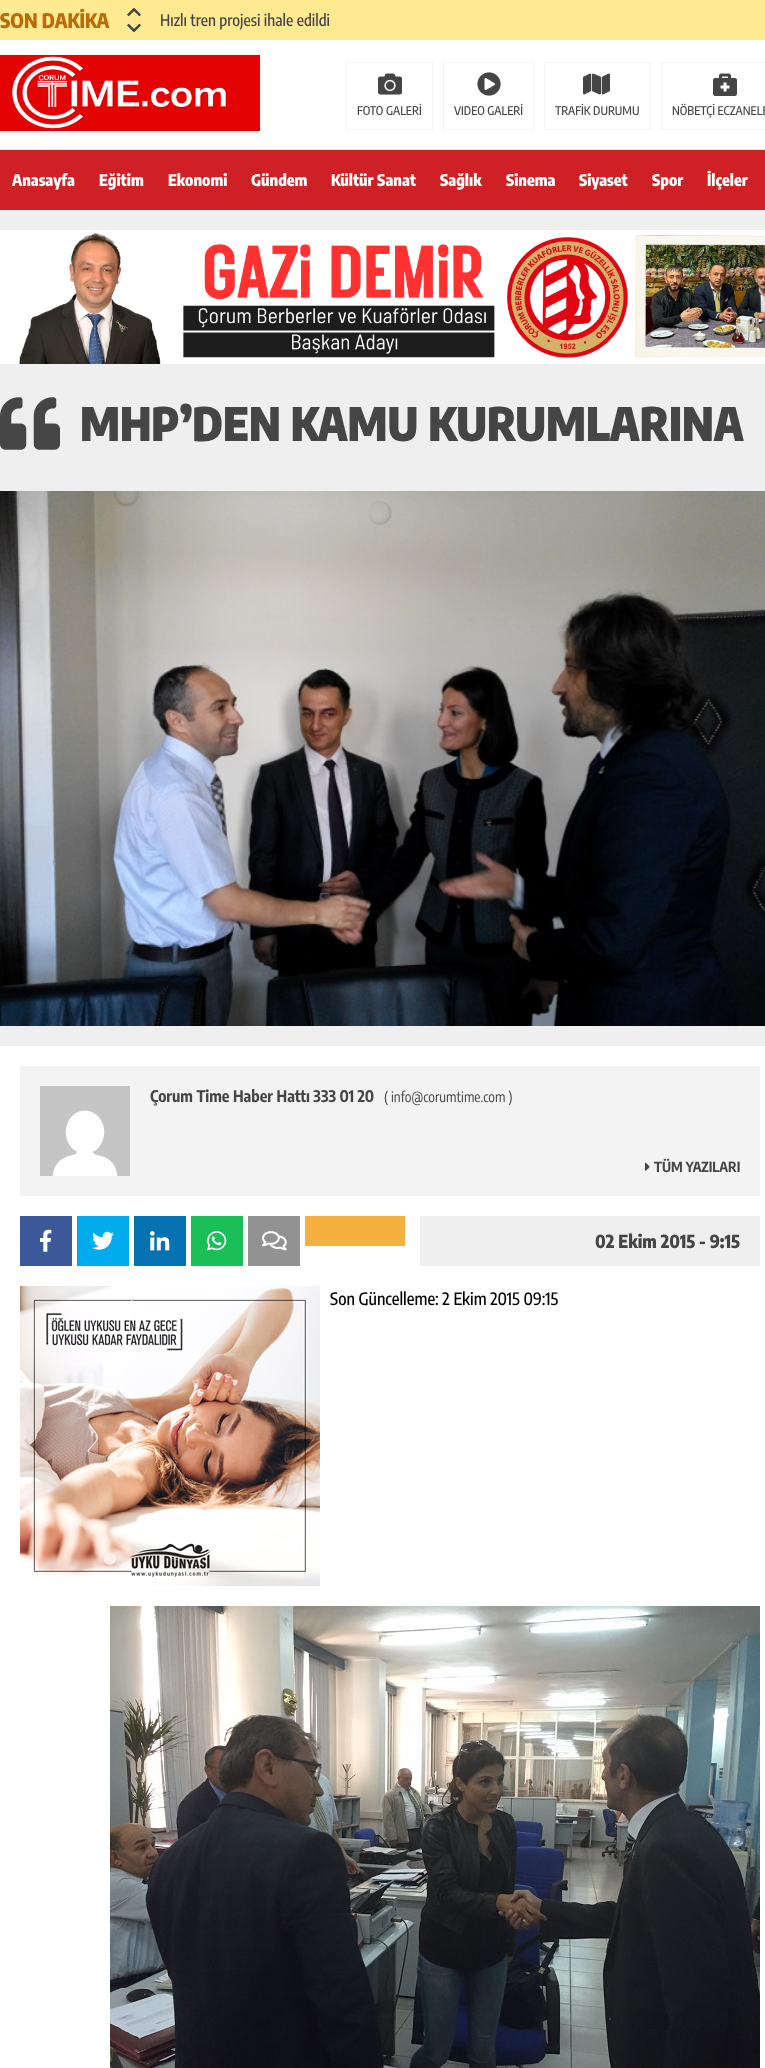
async function draw(canvas) {
	canvas.width = 765;
	canvas.height = 2068;
	const c = canvas.getContext('2d');
	c.miterLimit = 4;
	c.fontKerning = 'normal';
	async function loadImage(src) {
		const img = new Image();
		img.src = src;
		await img.decode();
		return img;
	}

	c.fillStyle = '#efefef';
	c.fillRect(0, 0, 765, 2068);
	c.fillStyle = '#ffe991';
	c.fillRect(0, 0, 765, 40);
	c.font = '800 20px Encode Sans Condensed';
	c.fillStyle = '#b96c09';
	c.fillText('SON DAKİKA', 0, 28);
	c.drawImage(await loadImage('img1.png'), 127, 7, 14, 10);
	c.drawImage(await loadImage('img2.png'), 127, 23, 14, 10);
	c.font = '500 16px Encode Sans Condensed';
	c.fillStyle = '#454545';
	c.fillText('Hızlı tren projesi ihale edildi', 160, 26);
	c.fillStyle = '#fff';
	c.fillRect(0, 40, 765, 109);
	c.fillStyle = '#e6e6e6';
	c.fillRect(0, 149, 765, 1);
	c.drawImage(await loadImage('img3.png'), 0, 55, 260, 76);
	c.drawImage(await loadImage('img4.png'), 378, 73, 24, 22);
	c.strokeStyle = '#f3f3f3';
	c.strokeRect(346.5, 62.5, 86, 67);
	c.font = '500 12px Encode Sans Condensed';
	c.fillStyle = '#454545';
	c.fillText('FOTO GALERİ', 357, 115);
	c.drawImage(await loadImage('img5.png'), 477, 72, 24, 24);
	c.strokeRect(443.5, 62.5, 90, 67);
	c.fillText('VIDEO GALERİ', 454, 115);
	c.drawImage(await loadImage('img6.png'), 583, 73, 27, 22);
	c.strokeRect(544.5, 62.5, 106, 67);
	c.fillText('TRAFİK DURUMU', 555, 115);
	c.drawImage(await loadImage('img7.png'), 713, 73, 24, 23);
	c.strokeRect(661.5, 62.5, 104, 67);
	c.fillText('NÖBETÇİ ECZANELE', 672, 115);
	c.fillStyle = '#ce2025';
	c.fillRect(0, 150, 765, 60);
	c.font = '800 16px Encode Sans Condensed';
	c.fillStyle = '#fff';
	for (const [text, x, y] of [
		['Anasayfa', 12, 186],
		['Eğitim', 99, 186],
		['Ekonomi', 168, 186],
		['Gündem', 251, 186],
		['Kültür Sanat', 331, 186],
		['Sağlık', 440, 186],
		['Sinema', 506, 186],
		['Siyaset', 579, 186],
		['Spor', 652, 186],
		['İlçeler', 707, 186],
	]) {
		c.fillText(text, x, y);
	}
	c.drawImage(await loadImage('img8.png'), 0, 230, 765, 134);
	c.drawImage(await loadImage('img9.png'), 0, 397, 60, 53);
	c.font = '900 46px Encode Sans Condensed';
	c.fillStyle = '#454545';
	c.fillText('MHP’DEN KAMU KURUMLARINA', 80, 441);
	c.drawImage(await loadImage('img10.png'), 0, 491, 765, 535);
	c.fillStyle = '#fff';
	c.fillRect(0, 1046, 765, 1022);
	c.fillStyle = '#f3f3f3';
	c.fillRect(20, 1066, 740, 130);
	c.drawImage(await loadImage('img11.png'), 40, 1086, 90, 90);
	c.font = 'bold 16px Encode Sans Condensed';
	c.fillStyle = '#454545';
	c.fillText('Çorum Time Haber Hattı 333 01 20', 150, 1102);
	c.font = '14px Encode Sans Condensed';
	c.fillText('( info@corumtime.com )', 384, 1102);
	c.drawImage(await loadImage('img12.png'), 645, 1162, 5, 9);
	c.font = 'bold 14px Encode Sans Condensed';
	c.fillText('TÜM YAZILARI', 654, 1172);
	c.fillStyle = '#3b5998';
	c.fillRect(20, 1216, 52, 50);
	c.drawImage(await loadImage('img13.png'), 40, 1229, 12, 23);
	c.fillStyle = '#00aced';
	c.fillRect(77, 1216, 52, 50);
	c.drawImage(await loadImage('img14.png'), 92, 1231, 22, 19);
	c.fillStyle = '#0573b1';
	c.fillRect(134, 1216, 52, 50);
	c.drawImage(await loadImage('img15.png'), 150, 1231, 20, 20);
	c.fillStyle = '#1bbf58';
	c.fillRect(191, 1216, 52, 50);
	c.drawImage(await loadImage('img16.png'), 207, 1231, 20, 20);
	c.fillStyle = '#929292';
	c.fillRect(248, 1216, 52, 50);
	c.drawImage(await loadImage('img17.png'), 262, 1231, 25, 20);
	c.fillStyle = '#f4b140';
	c.fillRect(305, 1216, 100, 30);
	c.fillStyle = '#efefef';
	c.fillRect(420, 1216, 340, 50);
	c.font = '800 18px Encode Sans Condensed';
	c.fillStyle = '#454545';
	c.fillText('02 Ekim 2015 - 9:15', 595, 1248);
	c.drawImage(await loadImage('img18.png'), 20, 1286, 300, 300);
	c.font = '500 17px Encode Sans Condensed';
	c.fillStyle = '#000';
	c.fillText('Son Güncelleme: 2 Ekim 2015 09:15', 330, 1305);
	c.drawImage(await loadImage('img19.png'), 110, 1606, 650, 462);
}

draw(document.querySelector('canvas'));
